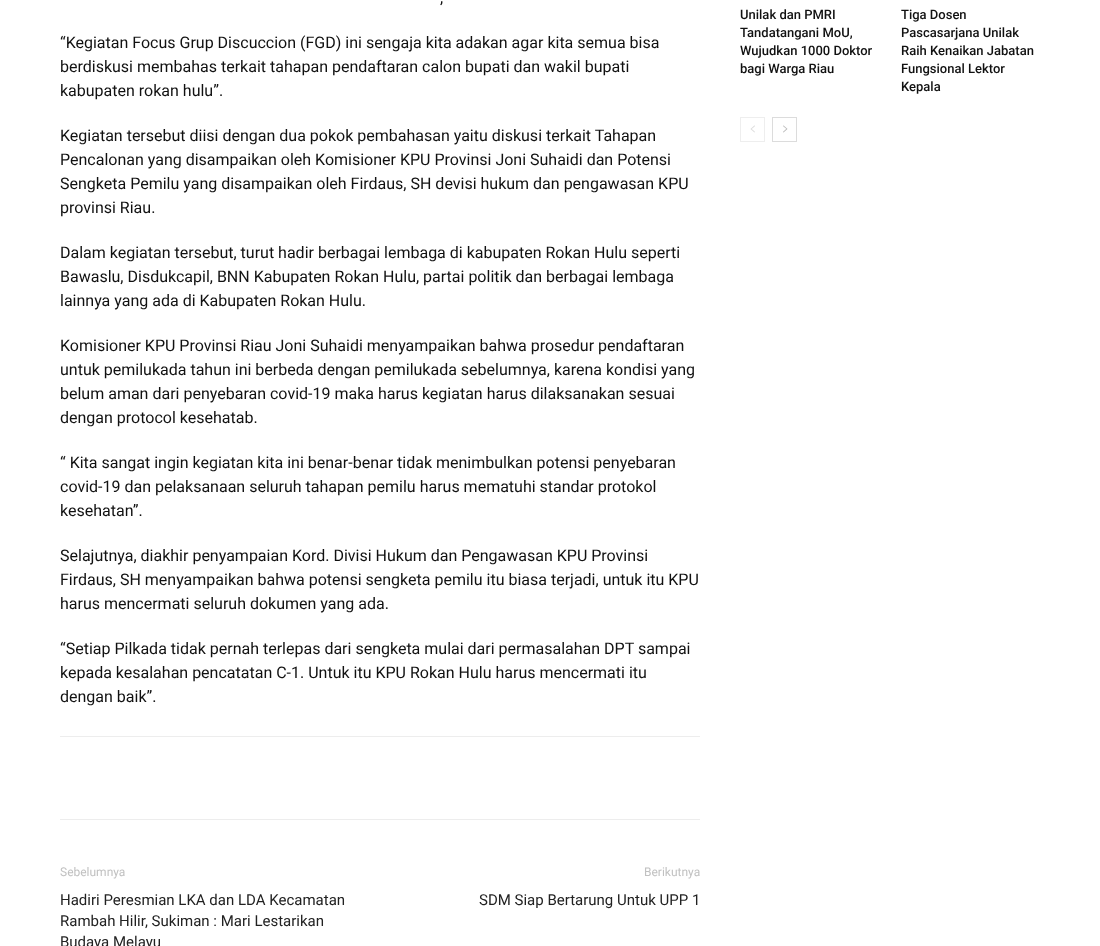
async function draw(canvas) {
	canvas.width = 1100;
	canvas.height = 946;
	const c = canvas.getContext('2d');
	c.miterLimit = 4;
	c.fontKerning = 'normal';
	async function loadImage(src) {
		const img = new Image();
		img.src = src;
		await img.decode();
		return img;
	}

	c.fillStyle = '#fff';
	c.fillRect(0, 0, 1100, 946);
	c.font = '16px Roboto';
	c.fillStyle = '#111';
	for (const [text, x, y] of [
		[',', 440, 3],
		['“Kegiatan Focus Grup Discuccion (FGD) ini sengaja kita adakan agar kita semua bisa', 60, 48],
		['berdiskusi membahas terkait tahapan pendaftaran calon bupati dan wakil bupati', 60, 72],
		['kabupaten rokan hulu”.', 60, 96],
		['Kegiatan tersebut diisi dengan dua pokok pembahasan yaitu diskusi terkait Tahapan', 60, 141],
		['Pencalonan yang disampaikan oleh Komisioner KPU Provinsi Joni Suhaidi dan Potensi', 60, 165],
		['Sengketa Pemilu yang disampaikan oleh Firdaus, SH devisi hukum dan pengawasan KPU', 60, 189],
		['provinsi Riau.', 60, 213],
		['Dalam kegiatan tersebut, turut hadir berbagai lembaga di kabupaten Rokan Hulu seperti', 60, 258],
		['Bawaslu, Disdukcapil, BNN Kabupaten Rokan Hulu, partai politik dan berbagai lembaga', 60, 282],
		['lainnya yang ada di Kabupaten Rokan Hulu.', 60, 306],
		['Komisioner KPU Provinsi Riau Joni Suhaidi menyampaikan bahwa prosedur pendaftaran', 60, 351],
		['untuk pemilukada tahun ini berbeda dengan pemilukada sebelumnya, karena kondisi yang', 60, 375],
		['belum aman dari penyebaran covid-19 maka harus kegiatan harus dilaksanakan sesuai', 60, 399],
		['dengan protocol kesehatab.', 60, 423],
		['“ Kita sangat ingin kegiatan kita ini benar-benar tidak menimbulkan potensi penyebaran', 60, 468],
		['covid-19 dan pelaksanaan seluruh tahapan pemilu harus mematuhi standar protokol', 60, 492],
		['kesehatan”.', 60, 516],
		['Selajutnya, diakhir penyampaian Kord. Divisi Hukum dan Pengawasan KPU Provinsi', 60, 561],
		['Firdaus, SH menyampaikan bahwa potensi sengketa pemilu itu biasa terjadi, untuk itu KPU', 60, 585],
		['harus mencermati seluruh dokumen yang ada.', 60, 609],
		['“Setiap Pilkada tidak pernah terlepas dari sengketa mulai dari permasalahan DPT sampai', 60, 654],
		['kepada kesalahan pencatatan C-1. Untuk itu KPU Rokan Hulu harus mencermati itu', 60, 678],
		['dengan baik”.', 60, 702],
	]) {
		c.fillText(text, x, y);
	}
	c.fillStyle = '#ededed';
	c.fillRect(60, 736, 640, 1);
	c.fillRect(60, 819, 640, 1);
	c.font = '12px Roboto';
	c.fillStyle = '#c1c1c1';
	c.fillText('Sebelumnya', 60, 876);
	c.font = '15px Roboto';
	c.fillStyle = '#222';
	for (const [text, x, y] of [
		['Hadiri Peresmian LKA dan LDA Kecamatan', 60, 905],
		['Rambah Hilir, Sukiman : Mari Lestarikan', 60, 926],
		['Budaya Melayu', 60, 947],
	]) {
		c.fillText(text, x, y);
	}
	c.font = '12px Roboto';
	c.fillStyle = '#c1c1c1';
	c.fillText('Berikutnya', 644, 876);
	c.font = '15px Roboto';
	c.fillStyle = '#222';
	c.fillText('SDM Siap Bertarung Untuk UPP 1', 479, 905);
	c.font = '500 13px Roboto';
	c.fillStyle = '#111';
	for (const [text, x, y] of [
		['Unilak dan PMRI', 740, 19],
		['Tandatangani MoU,', 740, 37],
		['Wujudkan 1000 Doktor', 740, 55],
		['bagi Warga Riau', 740, 73],
		['Tiga Dosen', 901, 19],
		['Pascasarjana Unilak', 901, 37],
		['Raih Kenaikan Jabatan', 901, 55],
		['Fungsional Lektor', 901, 73],
		['Kepala', 901, 91],
	]) {
		c.fillText(text, x, y);
	}
	c.strokeStyle = '#eee';
	c.strokeRect(740.5, 117.5, 24, 24);
	c.drawImage(await loadImage('img1.png'), 750, 125, 5, 8);
	c.strokeStyle = '#dcdcdc';
	c.strokeRect(772.5, 117.5, 24, 24);
	c.drawImage(await loadImage('img2.png'), 783, 125, 5, 8);
}

draw(document.querySelector('canvas'));
